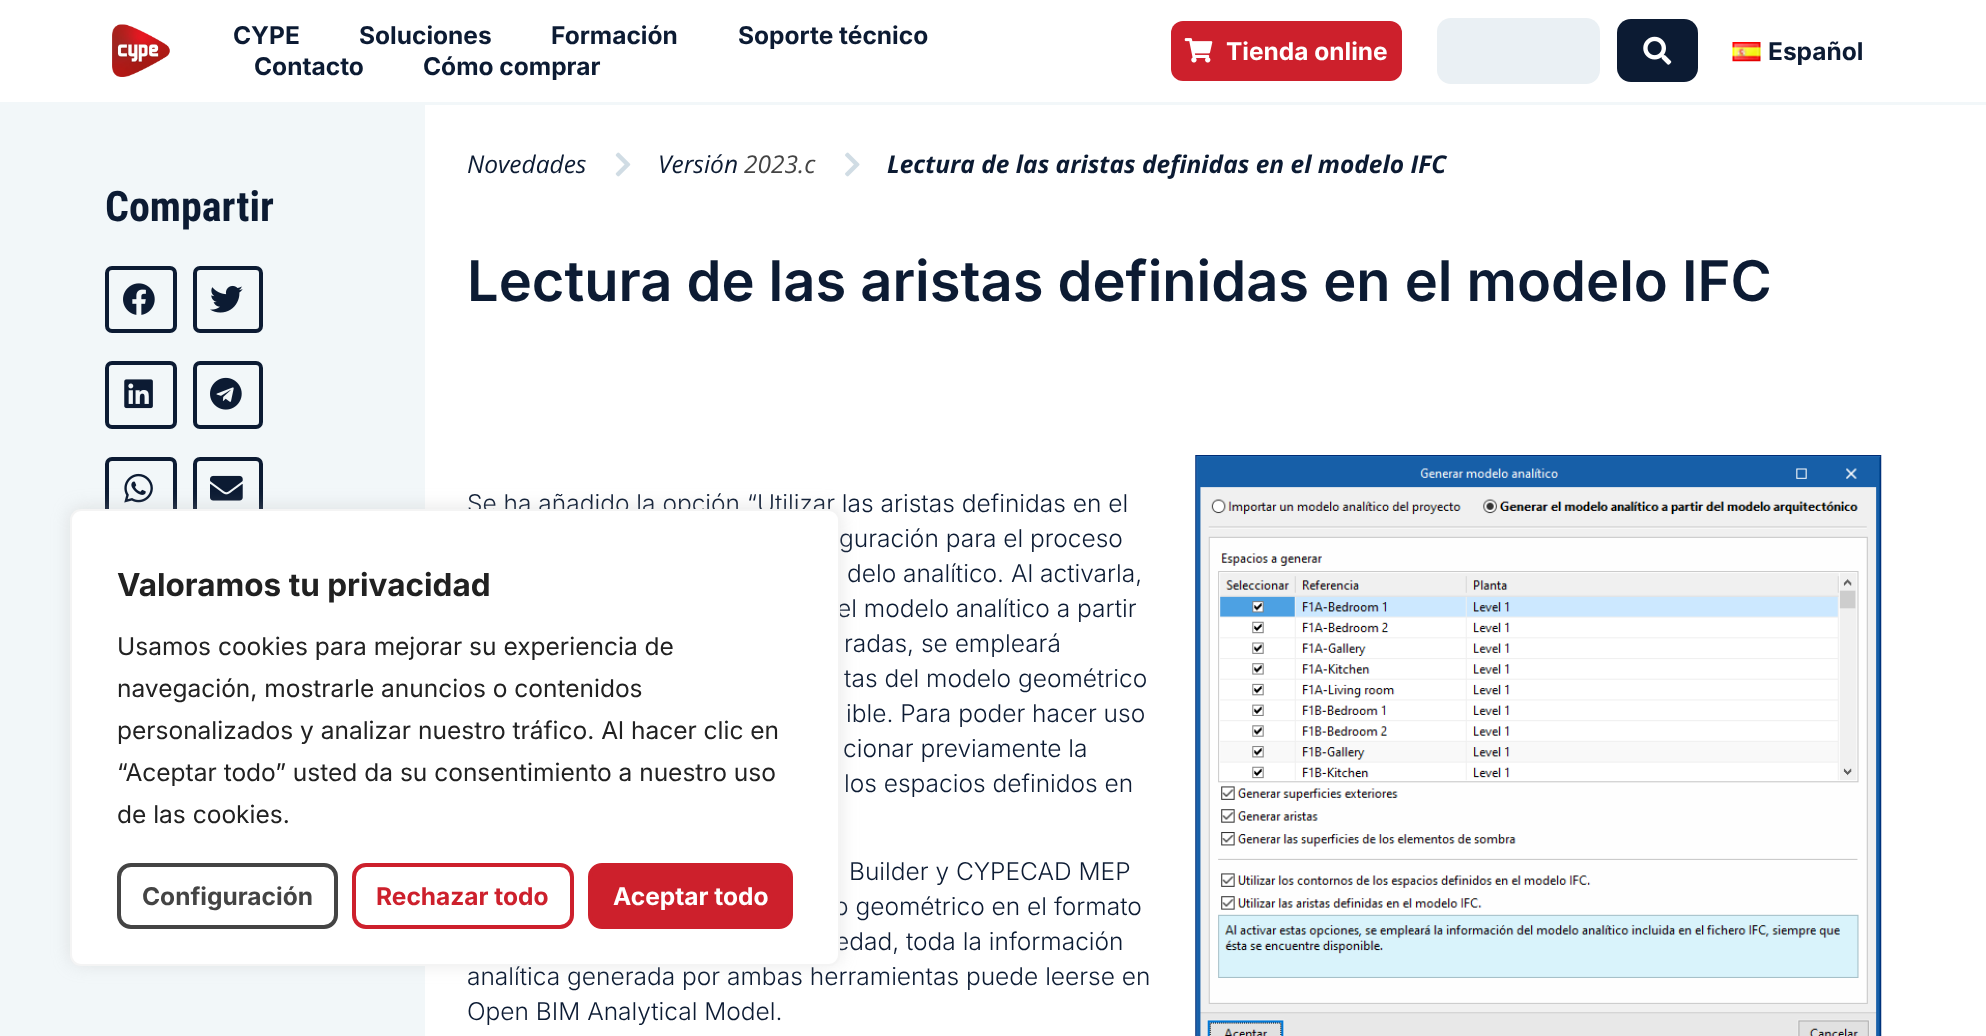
async function draw(canvas) {
	canvas.width = 1986;
	canvas.height = 1036;
	const c = canvas.getContext('2d');
	c.miterLimit = 4;
	c.fontKerning = 'normal';
	async function loadImage(src) {
		const img = new Image();
		img.src = src;
		await img.decode();
		return img;
	}

	c.fillStyle = '#fff';
	c.fillRect(0, 0, 1986, 1036);
	c.fillStyle = '#f2f7f9';
	c.fillRect(0, 102, 1986, 3);
	c.drawImage(await loadImage('img1.png'), 112, 24, 58, 53);
	c.font = 'bold 24.5px Inter';
	c.fillStyle = '#0c1b33';
	for (const [text, x, y] of [
		['CYPE', 233, 44],
		['Soluciones', 359, 44],
		['Formación', 551, 44],
		['Soporte técnico', 738, 44],
		['Contacto', 254, 75],
		['Cómo comprar', 423, 75],
	]) {
		c.fillText(text, x, y);
	}
	c.fillStyle = '#cd202c';
	c.beginPath();
	c.roundRect(1171, 21, 231, 60, 12);
	c.fill();
	c.drawImage(await loadImage('img2.png'), 1184, 38, 29, 25);
	c.fillStyle = '#fff';
	c.fillText('Tienda online', 1226, 60);
	c.fillStyle = '#eaf0f4';
	c.beginPath();
	c.roundRect(1437, 18, 163, 66, 14);
	c.fill();
	c.fillStyle = '#0c1b33';
	c.beginPath();
	c.roundRect(1617, 19, 81, 63, 14);
	c.fill();
	c.drawImage(await loadImage('img3.png'), 1643, 36, 29, 29);
	c.drawImage(await loadImage('img4.png'), 1732, 42, 29, 20);
	c.fillText('Español', 1768, 60);
	c.fillStyle = '#f2f7f9';
	c.fillRect(0, 105, 425, 931);
	c.font = 'bold 42px Roboto Condensed';
	c.fillStyle = '#0c1b33';
	c.fillText('Compartir', 105, 221);
	c.beginPath();
	c.roundRect(107, 268, 68, 63, 5);
	c.strokeStyle = '#0c1b33';
	c.lineWidth = 4;
	c.stroke();
	c.drawImage(await loadImage('img5.png'), 123, 283, 32, 32);
	c.beginPath();
	c.roundRect(195, 268, 66, 63, 5);
	c.stroke();
	c.drawImage(await loadImage('img6.png'), 210, 285, 33, 28);
	c.beginPath();
	c.roundRect(107, 363, 68, 64, 5);
	c.stroke();
	c.drawImage(await loadImage('img7.png'), 124, 379, 29, 30);
	c.beginPath();
	c.roundRect(195, 363, 66, 64, 5);
	c.stroke();
	c.drawImage(await loadImage('img8.png'), 210, 377, 32, 33);
	c.beginPath();
	c.roundRect(107, 459, 68, 62, 5);
	c.stroke();
	c.drawImage(await loadImage('img9.png'), 124, 473, 29, 30);
	c.beginPath();
	c.roundRect(195, 459, 66, 62, 5);
	c.stroke();
	c.drawImage(await loadImage('img10.png'), 210, 475, 33, 26);
	c.font = 'italic 24.5px Open Sans';
	c.fillText('Novedades', 467, 173);
	c.drawImage(await loadImage('img11.png'), 615, 152, 16, 25);
	c.fillText('Versión', 658, 173);
	c.fillStyle = '#444';
	c.fillText('2023.c', 744, 173);
	c.drawImage(await loadImage('img12.png'), 845, 152, 15, 25);
	c.font = 'italic bold 24.5px Open Sans';
	c.fillStyle = '#0c1b33';
	c.fillText('Lectura de las aristas definidas en el modelo IFC', 887, 173);
	c.font = '600 56px Inter';
	c.fillText('Lectura de las aristas definidas en el modelo IFC', 467, 301);
	c.font = '300 24.5px Inter';
	for (const [text, x, y] of [
		['Se ha añadido la opción “Utilizar las aristas definidas en el', 467, 512],
		['guración para el proceso', 839, 547],
		['delo analítico. Al activarla,', 847, 582],
		['el modelo analítico a partir', 837, 617],
		['radas, se empleará', 844, 652],
		['tas del modelo geométrico', 844, 687],
		['ible. Para poder hacer uso', 846, 722],
		['cionar previamente la', 843, 757],
		['los espacios definidos en', 844, 792],
		['Builder y CYPECAD MEP', 849, 880],
		['o geométrico en el formato', 834, 915],
		['edad, toda la información', 835, 950],
		['analítica generada por ambas herramientas puede leerse en', 467, 985],
		['Open BIM Analytical Model.', 467, 1020],
	]) {
		c.fillText(text, x, y);
	}
	c.drawImage(await loadImage('img13.png'), 1195, 455, 687, 581);
	c.fillStyle = '#acabab4d';
	c.filter = 'blur(9px)';
	c.beginPath();
	c.roundRect(70, 508, 770, 456, 11);
	c.fill();
	c.filter = 'none';
	c.fillStyle = '#fff';
	c.beginPath();
	c.roundRect(71, 510, 768, 455, 10);
	c.fill();
	c.strokeStyle = '#f4f4f4';
	c.lineWidth = 2;
	c.stroke();
	c.font = 'bold 31.5px Inter';
	c.fillStyle = '#212121';
	c.fillText('Valoramos tu privacidad', 117, 596);
	c.font = '24.5px Inter';
	for (const [text, x, y] of [
		['Usamos cookies para mejorar su experiencia de', 117, 655],
		['navegación, mostrarle anuncios o contenidos', 117, 697],
		['personalizados y analizar nuestro tráfico. Al hacer clic en', 117, 739],
		['“Aceptar todo” usted da su consentimiento a nuestro uso', 117, 781],
		['de las cookies.', 117, 823],
	]) {
		c.fillText(text, x, y);
	}
	c.beginPath();
	c.roundRect(119, 865, 217, 62, 12);
	c.strokeStyle = '#444';
	c.lineWidth = 4;
	c.stroke();
	c.font = 'bold 24.5px Inter';
	c.fillStyle = '#444';
	c.fillText('Configuración', 142, 905);
	c.beginPath();
	c.roundRect(354, 865, 218, 62, 12);
	c.strokeStyle = '#cd202c';
	c.stroke();
	c.fillStyle = '#cd202c';
	c.fillText('Rechazar todo', 376, 905);
	c.beginPath();
	c.roundRect(590, 865, 201, 62, 12);
	c.fill();
	c.stroke();
	c.fillStyle = '#fff';
	c.fillText('Aceptar todo', 613, 905);
}

draw(document.querySelector('canvas'));
